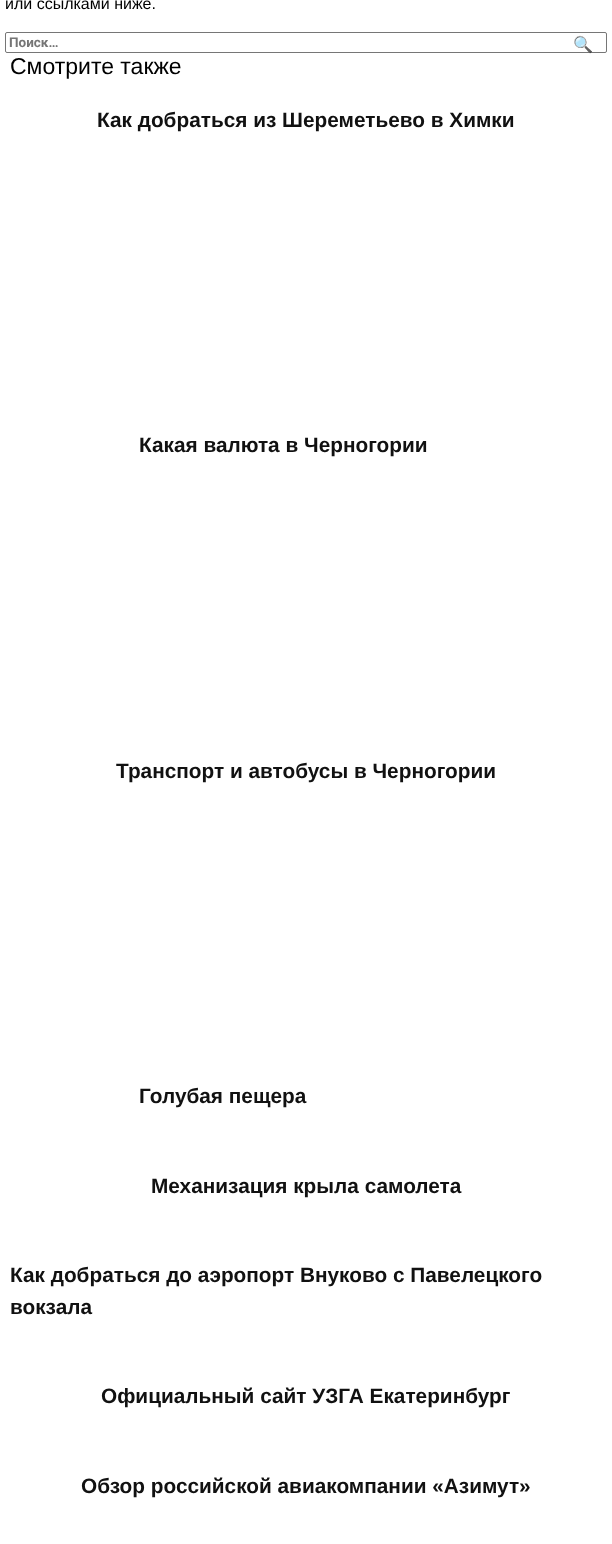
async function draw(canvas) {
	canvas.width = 612;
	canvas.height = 1544;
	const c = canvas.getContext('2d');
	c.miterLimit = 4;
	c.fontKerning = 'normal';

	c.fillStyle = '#fff';
	c.fillRect(0, 0, 612, 1544);
	c.font = '16px Liberation Sans';
	c.fillStyle = '#000';
	c.fillText('или ссылками ниже.', 5, 9);
	c.beginPath();
	c.roundRect(5.5, 32.5, 601, 20, 1.5);
	c.strokeStyle = '#767676';
	c.stroke();
	c.font = 'bold 13.5px Roboto';
	c.fillStyle = '#757575';
	c.fillText('Поиск…', 9, 47);
	c.font = '16px Noto Color Emoji';
	c.fillStyle = '#000';
	c.fillText('🔍', 573, 50);
	c.font = '23px Liberation Sans';
	c.fillText('Смотрите также', 10, 74);
	c.font = 'bold 20.8px Liberation Sans';
	c.fillStyle = '#111';
	for (const [text, x, y] of [
		['Как добраться из Шереметьево в Химки', 97, 127],
		['Какая валюта в Черногории', 139, 452],
		['Транспорт и автобусы в Черногории', 116, 778],
		['Голубая пещера', 139, 1103],
		['Механизация крыла самолета', 151, 1193],
		['Как добраться до аэропорт Внуково с Павелецкого', 10, 1282],
		['вокзала', 10, 1314],
		['Официальный сайт УЗГА Екатеринбург', 101, 1403],
		['Обзор российской авиакомпании «Азимут»', 81, 1493],
	]) {
		c.fillText(text, x, y);
	}
}

draw(document.querySelector('canvas'));
